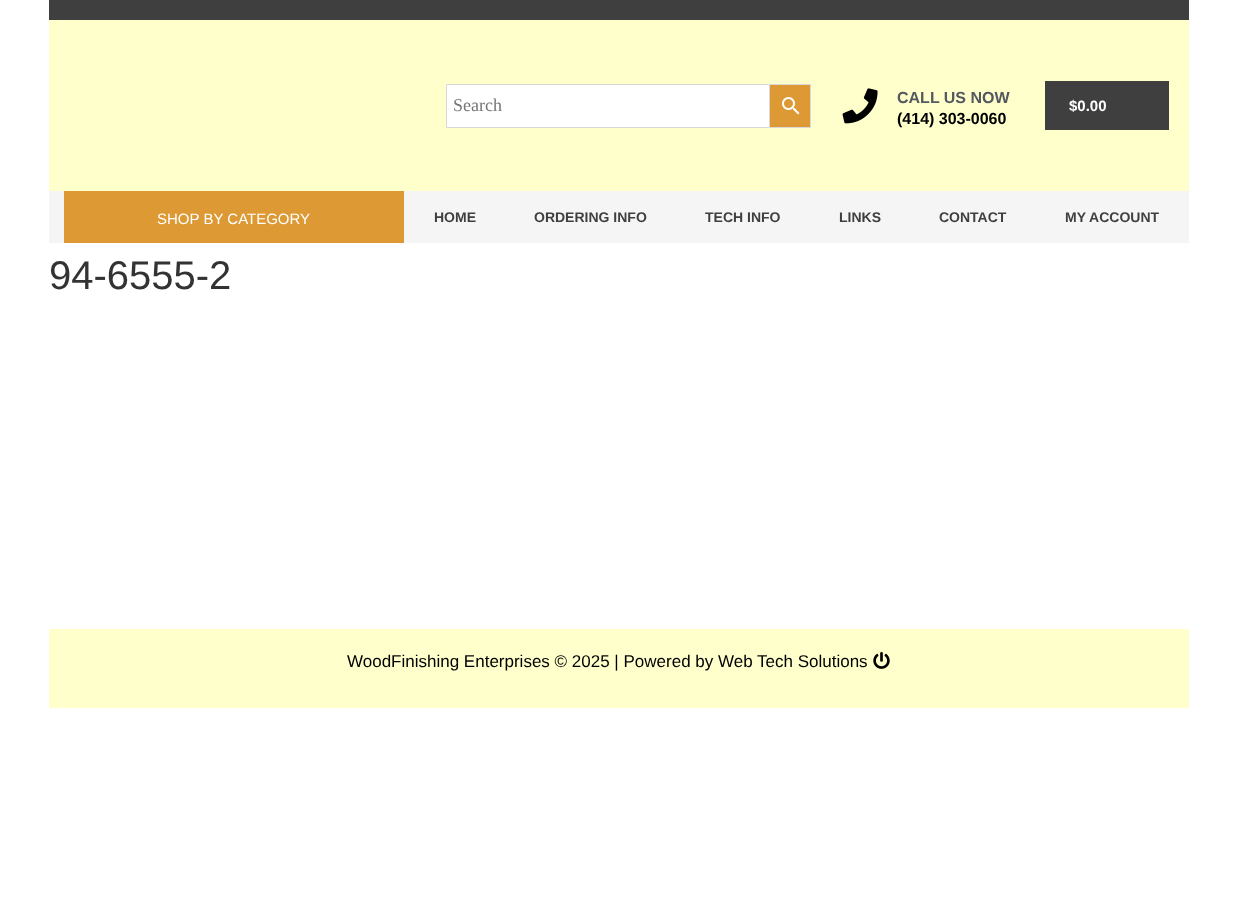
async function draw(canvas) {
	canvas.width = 1237;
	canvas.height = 922;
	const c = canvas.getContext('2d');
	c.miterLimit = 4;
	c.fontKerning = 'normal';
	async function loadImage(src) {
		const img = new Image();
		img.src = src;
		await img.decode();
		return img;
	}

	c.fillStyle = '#fff';
	c.fillRect(0, 0, 1237, 922);
	c.fillStyle = '#3f3f3f';
	c.fillRect(49, 0, 1140, 20);
	c.fillStyle = '#ffc';
	c.fillRect(49, 20, 1140, 171);
	c.fillStyle = '#d93';
	c.beginPath();
	c.rect(769.5, 84.5, 41, 43);
	c.fill();
	c.strokeStyle = '#d8d8d8';
	c.stroke();
	c.fillStyle = '#fff';
	c.beginPath();
	c.rect(446.5, 84.5, 323, 43);
	c.fill();
	c.stroke();
	c.font = '18px Liberation Serif';
	c.fillStyle = '#757575';
	c.fillText('Search', 453, 111);
	c.drawImage(await loadImage('img1.png'), 782, 97, 18, 18);
	c.drawImage(await loadImage('img2.png'), 842, 88, 36, 36);
	c.font = 'bold 16px Liberation Sans';
	c.fillStyle = '#54595f';
	c.fillText('CALL US NOW', 897, 103);
	c.fillStyle = '#000';
	c.fillText('(414) 303-0060', 897, 124);
	c.fillStyle = '#3f3f3f';
	c.fillRect(1045, 81, 124, 49);
	c.font = 'bold 15px Liberation Sans';
	c.fillStyle = '#fff';
	c.fillText('$0.00', 1069, 111);
	c.fillStyle = '#f5f5f5';
	c.fillRect(49, 191, 1140, 52);
	c.fillStyle = '#d93';
	c.fillRect(64, 191, 340, 52);
	c.font = '15px Liberation Sans';
	c.fillStyle = '#fff';
	c.fillText('SHOP BY CATEGORY', 157, 224);
	c.font = 'bold 14px Liberation Sans';
	c.fillStyle = '#3f3f3f';
	for (const [text, x, y] of [
		['HOME', 434, 222],
		['ORDERING INFO', 534, 222],
		['TECH INFO', 705, 222],
		['LINKS', 839, 222],
		['CONTACT', 939, 222],
		['MY ACCOUNT', 1065, 222],
	]) {
		c.fillText(text, x, y);
	}
	c.font = '40px Liberation Sans';
	c.fillStyle = '#333';
	c.fillText('94-6555-2', 49, 289);
	c.fillStyle = '#ffc';
	c.fillRect(49, 629, 1140, 79);
	c.font = '17px Liberation Sans';
	c.fillStyle = '#000';
	c.fillText('WoodFinishing Enterprises © 2025 | Powered by Web Tech Solutions', 347, 667);
	c.drawImage(await loadImage('img3.png'), 873, 652, 17, 17);
}

draw(document.querySelector('canvas'));
